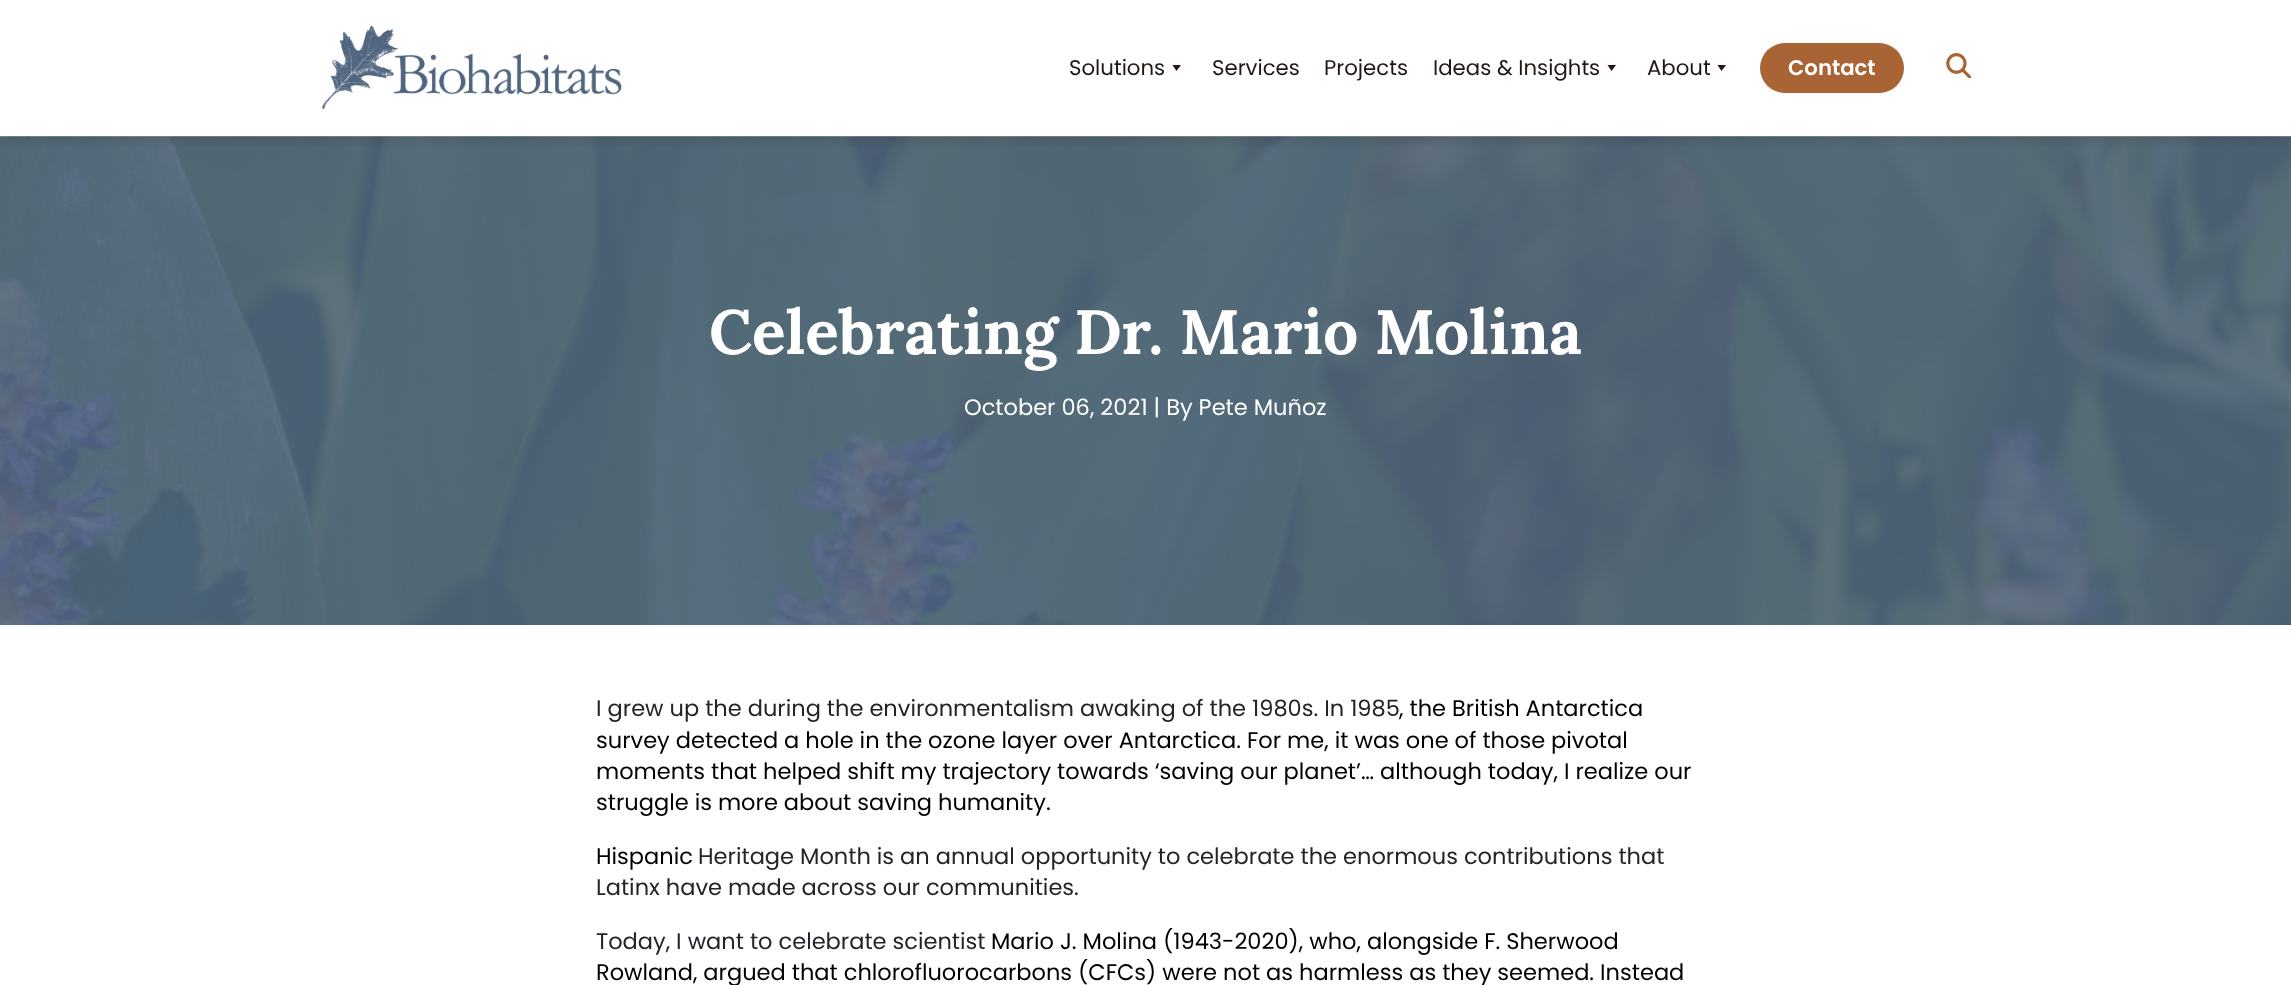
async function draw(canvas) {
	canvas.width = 2291;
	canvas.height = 985;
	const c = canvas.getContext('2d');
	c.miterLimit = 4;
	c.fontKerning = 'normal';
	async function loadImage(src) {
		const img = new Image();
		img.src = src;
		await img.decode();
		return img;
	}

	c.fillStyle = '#fff';
	c.fillRect(0, 0, 2291, 985);
	c.drawImage(await loadImage('img3.png'), 0, 136, 2291, 489);
	c.save();
	c.beginPath();
	c.rect(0, 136, 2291, 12);
	c.clip();
	c.fillStyle = '#22171433';
	c.filter = 'blur(7px)';
	c.beginPath();
	c.rect(0, 3, 2291, 136);
	c.fill();
	c.filter = 'none';
	c.restore();
	c.drawImage(await loadImage('img1.png'), 321, 25, 301, 85);
	c.font = '21.25px Poppins';
	c.fillStyle = '#221714';
	c.fillText('Solutions', 1069, 75);
	c.beginPath();
	c.moveTo(1181, 65);
	c.lineTo(1176.5, 71);
	c.lineTo(1172.5, 65);
	c.closePath();
	c.fill();
	for (const [text, x, y] of [
		['Services', 1212, 75],
		['Projects', 1324, 75],
		['Ideas & Insights', 1433, 75],
	]) {
		c.fillText(text, x, y);
	}
	c.beginPath();
	c.moveTo(1616, 65);
	c.lineTo(1611.5, 71);
	c.lineTo(1607.5, 65);
	c.closePath();
	c.fill();
	c.fillText('About', 1647, 75);
	c.beginPath();
	c.moveTo(1726, 65);
	c.lineTo(1721.5, 71);
	c.lineTo(1717.5, 65);
	c.closePath();
	c.fill();
	c.fillStyle = '#a86434';
	c.beginPath();
	c.roundRect(1760, 43, 144, 50, 25);
	c.fill();
	c.font = '600 21.25px Poppins';
	c.fillStyle = '#fff';
	c.fillText('Contact', 1788, 75);
	c.drawImage(await loadImage('img2.png'), 1946, 53, 25, 25);
	c.font = 'bold 62.5px Lora';
	c.fillText('Celebrating Dr. Mario Molina', 709, 354);
	c.font = '22.5px Poppins';
	c.fillText('October 06, 2021 | By Pete Muñoz', 964, 415);
	c.fillStyle = '#212529';
	c.fillText('I grew up the during the environmentalism awaking of the 1980s. In 1985', 596, 716);
	c.fillStyle = '#000';
	for (const [text, x, y] of [
		[', the British Antarctica', 1399, 716],
		['survey detected a hole in the ozone layer over Antarctica. For me, it was one of those pivotal', 596, 748],
		['moments that helped shift my trajectory towards ‘saving our planet’… although today, I realize our', 596, 779],
		['struggle is more about saving humanity.', 596, 810],
		['Hispanic', 596, 864],
	]) {
		c.fillText(text, x, y);
	}
	c.fillStyle = '#212529';
	for (const [text, x, y] of [
		['Heritage Month is an annual opportunity to celebrate the enormous contributions that', 698, 864],
		['Latinx have made across our communities.', 596, 895],
		['Today, I want to celebrate scientist', 596, 949],
	]) {
		c.fillText(text, x, y);
	}
	c.fillStyle = '#000';
	c.fillText('Mario J. Molina (1943-2020), who, alongside F. Sherwood', 991, 949);
	c.fillText('Rowland, argued that chlorofluorocarbons (CFCs) were not as harmless as they seemed. Instead', 596, 980);
}

draw(document.querySelector('canvas'));
